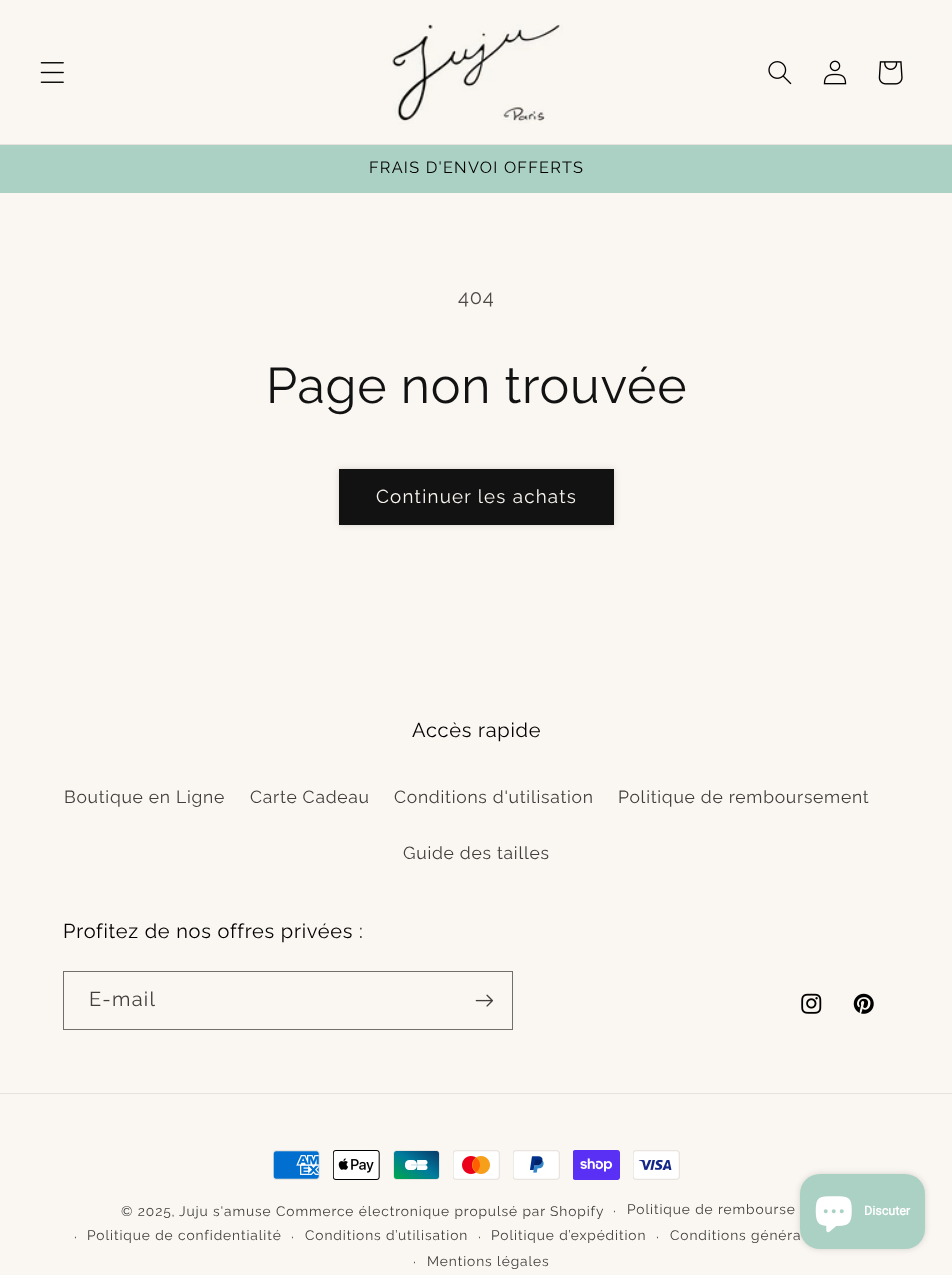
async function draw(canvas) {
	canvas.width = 952;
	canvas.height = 1275;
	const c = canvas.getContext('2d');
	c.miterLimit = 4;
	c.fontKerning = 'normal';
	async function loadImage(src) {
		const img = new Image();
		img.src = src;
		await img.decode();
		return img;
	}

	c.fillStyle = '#faf6f1';
	c.fillRect(0, 0, 952, 1275);
	c.fillStyle = '#e6e2de';
	c.fillRect(0, 144, 952, 1);
	c.drawImage(await loadImage('img1.png'), 40, 62, 24, 21);
	c.drawImage(await loadImage('img2.png'), 390, 24, 173, 100);
	c.drawImage(await loadImage('img3.png'), 768, 61, 24, 24);
	c.drawImage(await loadImage('img4.png'), 823, 60, 24, 25);
	c.drawImage(await loadImage('img5.png'), 878, 61, 25, 24);
	c.fillStyle = '#abd1c4';
	c.fillRect(0, 145, 952, 48);
	c.letterSpacing = '1.25px';
	c.font = '100 16.25px Raleway';
	c.fillStyle = '#000';
	c.fillText('FRAIS D\'ENVOI OFFERTS', 369, 173);
	c.letterSpacing = '0.75px';
	c.font = '100 20px Raleway';
	c.fillStyle = '#4c4b4a';
	c.fillText('404', 458, 304);
	c.font = '100 50px Raleway';
	c.fillStyle = '#121212';
	c.fillText('Page non trouvée', 266, 403);
	c.fillStyle = '#12121226';
	c.filter = 'blur(3px)';
	c.beginPath();
	c.rect(339, 469, 275, 56);
	c.fill();
	c.filter = 'none';
	c.fillStyle = '#121212';
	c.fillRect(339, 469, 275, 56);
	c.letterSpacing = '1.25px';
	c.font = '100 18.75px Raleway';
	c.fillStyle = '#faf6f1';
	c.fillText('Continuer les achats', 376, 503);
	c.letterSpacing = '0.75px';
	c.font = '100 20px Raleway';
	c.fillStyle = '#000';
	c.fillText('Accès rapide', 412, 737);
	c.font = '100 17.5px Raleway';
	c.fillStyle = '#3f3e3c';
	for (const [text, x, y] of [
		['Boutique en Ligne', 64, 803],
		['Carte Cadeau', 250, 803],
		['Conditions d\'utilisation', 394, 803],
		['Politique de remboursement', 618, 803],
		['Guide des tailles', 403, 859],
	]) {
		c.fillText(text, x, y);
	}
	c.font = '100 20px Raleway';
	c.fillStyle = '#000';
	c.fillText('Profitez de nos offres privées :', 63, 938);
	c.strokeStyle = '#716f6c';
	c.strokeRect(63.5, 971.5, 449, 58);
	c.letterSpacing = '1.25px';
	c.fillStyle = '#3f3e3c';
	c.fillText('E-mail', 89, 1006);
	c.drawImage(await loadImage('img6.png'), 475, 994, 18, 13);
	c.drawImage(await loadImage('img7.png'), 801, 993, 21, 21);
	c.drawImage(await loadImage('img8.png'), 853, 993, 21, 21);
	c.fillStyle = '#e6e2de';
	c.fillRect(0, 1093, 952, 1);
	c.drawImage(await loadImage('img9.png'), 273, 1150, 47, 30);
	c.drawImage(await loadImage('img10.png'), 333, 1150, 47, 30);
	c.drawImage(await loadImage('img11.png'), 393, 1150, 47, 30);
	c.drawImage(await loadImage('img12.png'), 453, 1150, 47, 30);
	c.drawImage(await loadImage('img13.png'), 513, 1150, 47, 30);
	c.drawImage(await loadImage('img14.png'), 573, 1150, 47, 30);
	c.drawImage(await loadImage('img15.png'), 633, 1150, 47, 30);
	c.letterSpacing = '0.9px';
	c.font = '100 15px Raleway';
	c.fillStyle = '#3f3e3c';
	c.fillText('·', 613, 1216);
	c.font = '100 13.75px Raleway';
	c.fillText('Politique de rembourse', 627, 1214);
	c.font = '100 15px Raleway';
	c.fillText('·', 74, 1242);
	c.font = '100 13.75px Raleway';
	c.fillText('Politique de confidentialité', 87, 1240);
	c.font = '100 15px Raleway';
	c.fillText('·', 291, 1242);
	c.font = '100 13.75px Raleway';
	c.fillText('Conditions d’utilisation', 305, 1240);
	c.font = '100 15px Raleway';
	c.fillText('·', 478, 1242);
	c.font = '100 13.75px Raleway';
	c.fillText('Politique d’expédition', 491, 1240);
	c.font = '100 15px Raleway';
	c.fillText('·', 656, 1242);
	c.font = '100 13.75px Raleway';
	c.fillText('Conditions généra', 670, 1240);
	c.font = '100 15px Raleway';
	c.fillText('·', 413, 1267);
	c.font = '100 13.75px Raleway';
	for (const [text, x, y] of [
		['Mentions légales', 427, 1266],
		['© 2025,', 121, 1216],
		['Juju s\'amuse', 179, 1216],
		['Commerce électronique propulsé par Shopify', 276, 1216],
	]) {
		c.fillText(text, x, y);
	}
	c.fillStyle = '#00000026';
	c.filter = 'blur(3px)';
	c.beginPath();
	c.roundRect(800, 1174, 125, 75, 20);
	c.fill();
	c.filter = 'none';
	c.fillStyle = '#abd1c4';
	c.beginPath();
	c.roundRect(800, 1174, 125, 75, 20);
	c.fill();
	c.drawImage(await loadImage('img16.png'), 815, 1196, 37, 37);
	c.letterSpacing = '0px';
	c.font = 'bold 12.5px Roboto';
	c.fillStyle = '#fff';
	c.fillText('Discuter', 864, 1215);
}

draw(document.querySelector('canvas'));
